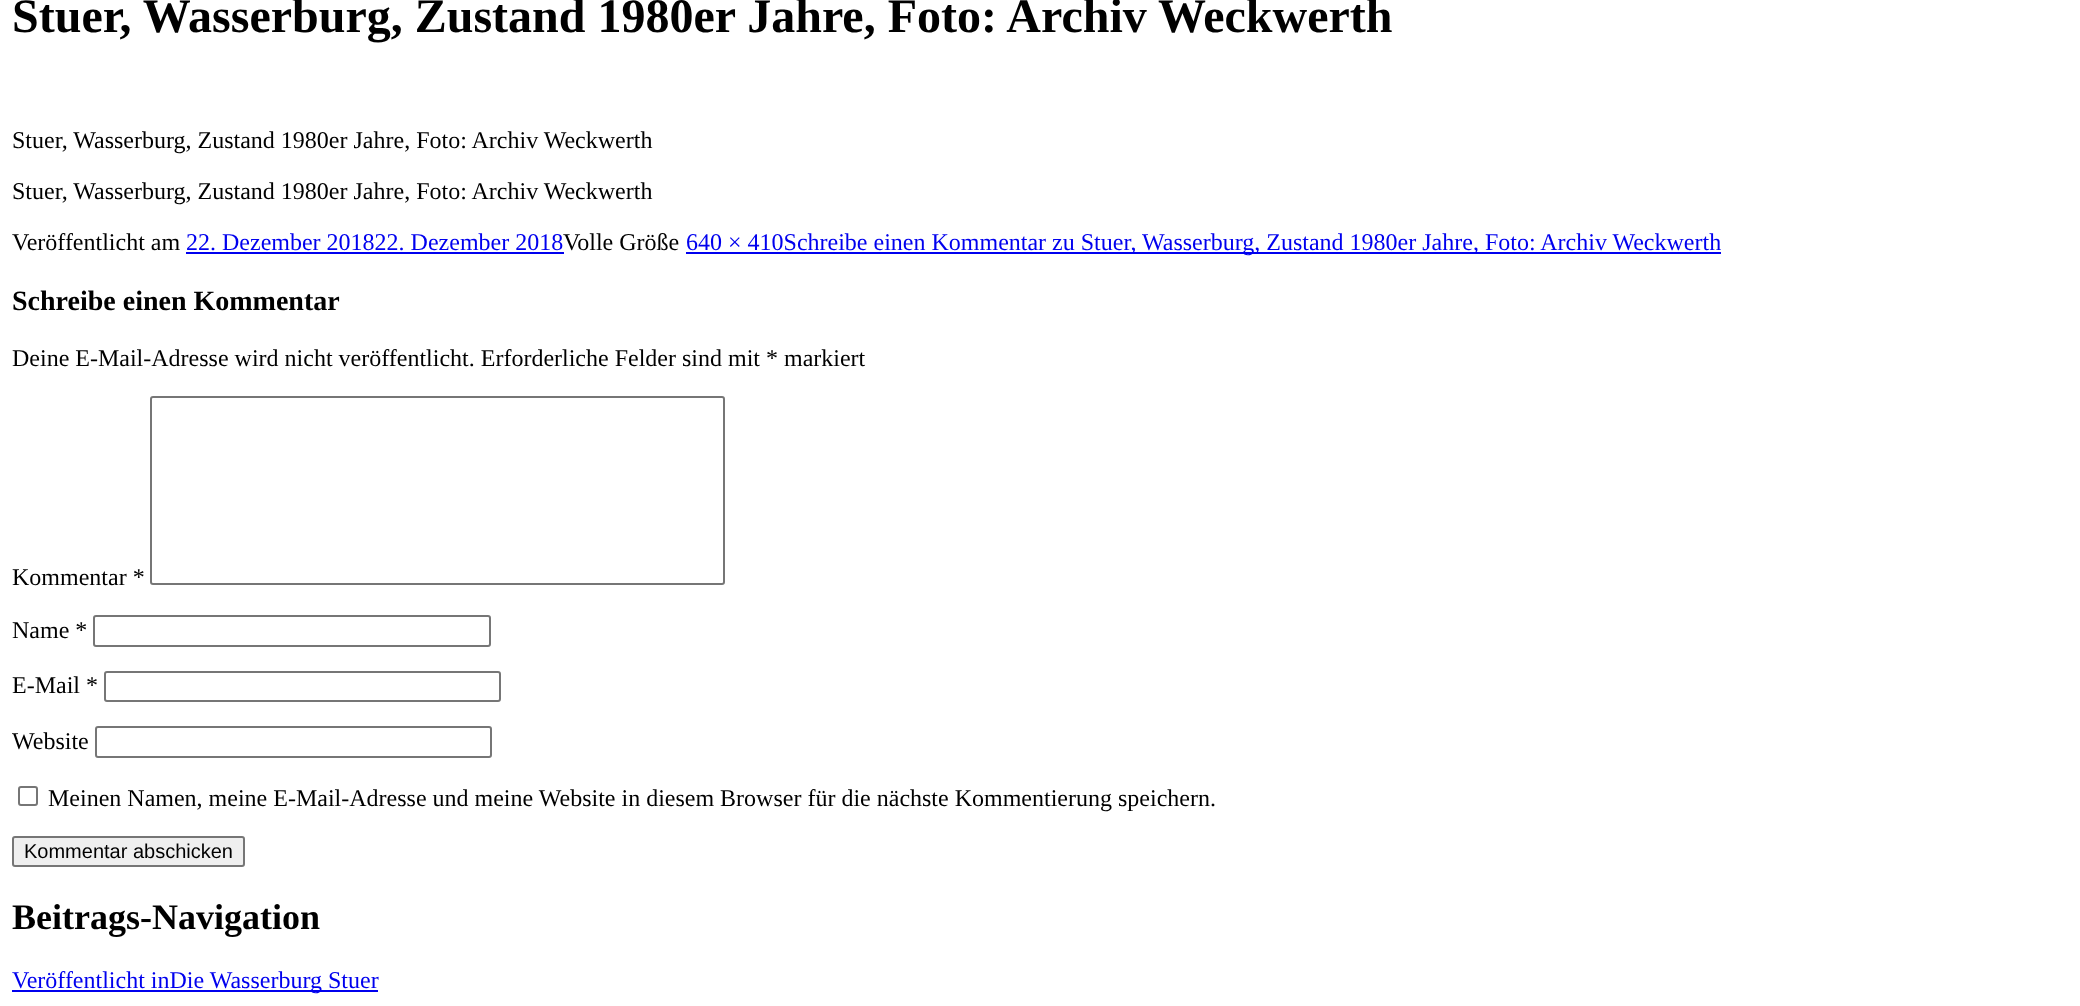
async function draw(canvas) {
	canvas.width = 2080;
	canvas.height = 1006;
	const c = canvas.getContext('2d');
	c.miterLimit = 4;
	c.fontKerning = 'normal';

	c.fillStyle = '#fff';
	c.fillRect(0, 0, 2080, 1006);
	c.font = 'bold 48px Liberation Serif';
	c.fillStyle = '#000';
	c.fillText('Stuer, Wasserburg, Zustand 1980er Jahre, Foto: Archiv Weckwerth', 12, 32);
	c.font = '24px Liberation Serif';
	for (const [text, x, y] of [
		['Stuer, Wasserburg, Zustand 1980er Jahre, Foto: Archiv Weckwerth', 12, 148],
		['Stuer, Wasserburg, Zustand 1980er Jahre, Foto: Archiv Weckwerth', 12, 199],
		['Veröffentlicht am', 12, 250],
	]) {
		c.fillText(text, x, y);
	}
	c.fillStyle = '#00e';
	c.fillText('22. Dezember 201822. Dezember 2018', 186, 250);
	c.fillRect(186, 252, 378, 2);
	c.fillStyle = '#000';
	c.fillText('Volle Größe', 563, 250);
	c.fillStyle = '#00e';
	c.fillRect(686, 252, 1035, 2);
	c.fillText('640 × 410Schreibe einen Kommentar zu Stuer, Wasserburg, Zustand 1980er Jahre, Foto: Archiv Weckwerth', 686, 250);
	c.font = 'bold 28px Liberation Serif';
	c.fillStyle = '#000';
	c.fillText('Schreibe einen Kommentar', 12, 310);
	c.font = '24px Liberation Serif';
	c.fillText('Deine E-Mail-Adresse wird nicht veröffentlicht. Erforderliche Felder sind mit * markiert', 12, 366);
	c.fillText('Kommentar *', 12, 585);
	c.beginPath();
	c.roundRect(151, 397, 573, 187, 2);
	c.strokeStyle = '#767676';
	c.lineWidth = 2;
	c.stroke();
	c.fillText('Name *', 12, 638);
	c.beginPath();
	c.roundRect(94, 616, 396, 30, 2);
	c.stroke();
	c.fillText('E-Mail *', 12, 693);
	c.beginPath();
	c.roundRect(105, 672, 395, 29, 2);
	c.stroke();
	c.fillText('Website', 12, 749);
	c.beginPath();
	c.roundRect(96, 727, 395, 30, 2);
	c.stroke();
	c.beginPath();
	c.roundRect(19, 787, 18, 18, 2);
	c.stroke();
	c.fillText('Meinen Namen, meine E-Mail-Adresse und meine Website in diesem Browser für die nächste Kommentierung speichern.', 48, 806);
	c.fillStyle = '#efefef';
	c.beginPath();
	c.roundRect(13, 837, 231, 29, 2);
	c.fill();
	c.stroke();
	c.font = '20px Liberation Sans';
	c.fillStyle = '#000';
	c.fillText('Kommentar abschicken', 24, 858);
	c.font = 'bold 36px Liberation Serif';
	c.fillText('Beitrags-Navigation', 12, 929);
	c.fillStyle = '#00e';
	c.fillRect(12, 990, 366, 2);
	c.font = '24px Liberation Serif';
	c.fillText('Veröffentlicht inDie Wasserburg Stuer', 12, 988);
}

draw(document.querySelector('canvas'));
